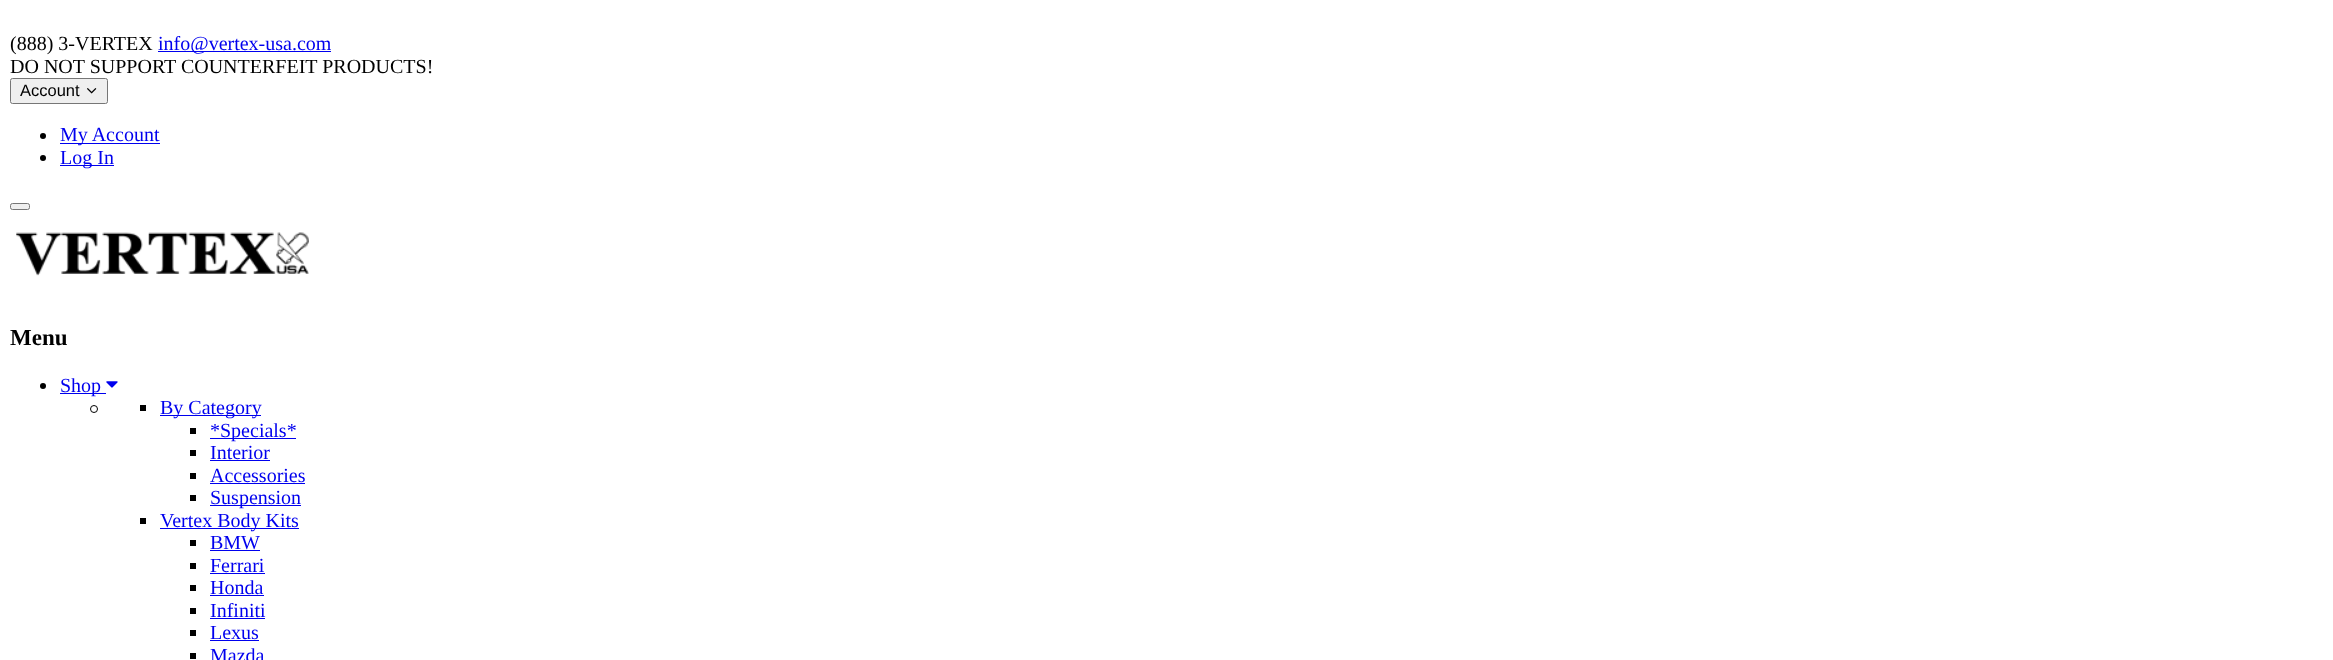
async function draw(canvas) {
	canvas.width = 2333;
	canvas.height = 660;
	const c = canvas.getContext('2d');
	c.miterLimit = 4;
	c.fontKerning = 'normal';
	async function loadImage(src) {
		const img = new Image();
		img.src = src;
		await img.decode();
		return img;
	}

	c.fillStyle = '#fff';
	c.fillRect(0, 0, 2333, 660);
	c.font = '20px Liberation Serif';
	c.fillStyle = '#000';
	c.fillText('(888) 3-VERTEX', 10, 50);
	c.fillStyle = '#00e';
	c.fillRect(158, 51, 173, 1);
	c.fillText('info@vertex-usa.com', 158, 50);
	c.fillStyle = '#000';
	c.fillText('DO NOT SUPPORT COUNTERFEIT PRODUCTS!', 10, 73);
	c.fillStyle = '#efefef';
	c.beginPath();
	c.roundRect(10.5, 78.5, 97, 25, 2);
	c.fill();
	c.strokeStyle = '#767676';
	c.stroke();
	c.font = '16.5px Liberation Sans';
	c.fillStyle = '#000';
	c.fillText('Account', 20, 96);
	c.drawImage(await loadImage('img1.png'), 87, 88, 10, 6);
	c.beginPath();
	c.arc(43, 136, 3, 0, 2 * Math.PI);
	c.fill();
	c.fillStyle = '#00e';
	c.fillRect(60, 143, 100, 1);
	c.font = '20px Liberation Serif';
	c.fillText('My Account', 60, 141);
	c.fillStyle = '#000';
	c.beginPath();
	c.arc(43, 158, 3, 0, 2 * Math.PI);
	c.fill();
	c.fillStyle = '#00e';
	c.fillRect(60, 165, 54, 1);
	c.fillText('Log In', 60, 164);
	c.fillStyle = '#efefef';
	c.beginPath();
	c.roundRect(10.5, 203.5, 19, 6, 2);
	c.fill();
	c.stroke();
	c.drawImage(await loadImage('img2.png'), 16, 232, 293, 44);
	c.font = 'bold 23px Liberation Serif';
	c.fillStyle = '#000';
	c.fillText('Menu', 10, 345);
	c.beginPath();
	c.arc(43, 386, 3, 0, 2 * Math.PI);
	c.fill();
	c.fillStyle = '#00e';
	c.fillRect(60, 393, 46, 1);
	c.font = '20px Liberation Serif';
	c.fillText('Shop', 60, 392);
	c.drawImage(await loadImage('img3.png'), 106, 381, 12, 7);
	c.beginPath();
	c.arc(94, 409, 3.5, 0, 2 * Math.PI);
	c.strokeStyle = '#000';
	c.stroke();
	c.fillStyle = '#000';
	c.fillRect(140, 405, 6, 6);
	c.fillStyle = '#00e';
	c.fillRect(160, 415, 101, 1);
	c.fillText('By Category', 160, 414);
	c.fillStyle = '#000';
	c.fillRect(190, 428, 6, 6);
	c.fillStyle = '#00e';
	c.fillRect(210, 438, 86, 1);
	c.fillText('*Specials*', 210, 437);
	c.fillStyle = '#000';
	c.fillRect(190, 450, 6, 6);
	c.fillStyle = '#00e';
	c.fillText('Interior', 210, 459);
	c.fillRect(210, 460, 60, 1);
	c.fillStyle = '#000';
	c.fillRect(190, 473, 6, 6);
	c.fillStyle = '#00e';
	c.fillText('Accessories', 210, 482);
	for (const [x, y, w, h, color] of [
		[210, 483, 95, 1, '#00e'],
		[190, 495, 6, 6, '#000'],
		[210, 505, 91, 1, '#00e'],
	]) {
		c.fillStyle = color;
		c.fillRect(x, y, w, h);
	}
	c.fillText('Suspension', 210, 504);
	c.fillStyle = '#000';
	c.fillRect(140, 518, 6, 6);
	c.fillStyle = '#00e';
	c.fillRect(160, 528, 139, 1);
	c.fillText('Vertex Body Kits', 160, 527);
	c.fillStyle = '#000';
	c.fillRect(190, 540, 6, 6);
	c.fillStyle = '#00e';
	c.fillText('BMW', 210, 549);
	c.fillRect(210, 550, 50, 1);
	c.fillStyle = '#000';
	c.fillRect(190, 563, 6, 6);
	c.fillStyle = '#00e';
	c.fillText('Ferrari', 210, 572);
	c.fillRect(210, 573, 55, 1);
	c.fillStyle = '#000';
	c.fillRect(190, 585, 6, 6);
	c.fillStyle = '#00e';
	c.fillText('Honda', 210, 594);
	c.fillRect(210, 595, 54, 1);
	c.fillStyle = '#000';
	c.fillRect(190, 608, 6, 6);
	c.fillStyle = '#00e';
	c.fillText('Infiniti', 210, 617);
	c.fillRect(210, 618, 55, 1);
	c.fillStyle = '#000';
	c.fillRect(190, 630, 6, 6);
	c.fillStyle = '#00e';
	c.fillText('Lexus', 210, 639);
	c.fillRect(210, 640, 49, 1);
	c.fillStyle = '#000';
	c.fillRect(190, 653, 6, 6);
	c.fillStyle = '#00e';
	c.fillText('Mazda', 210, 662);
}

draw(document.querySelector('canvas'));
